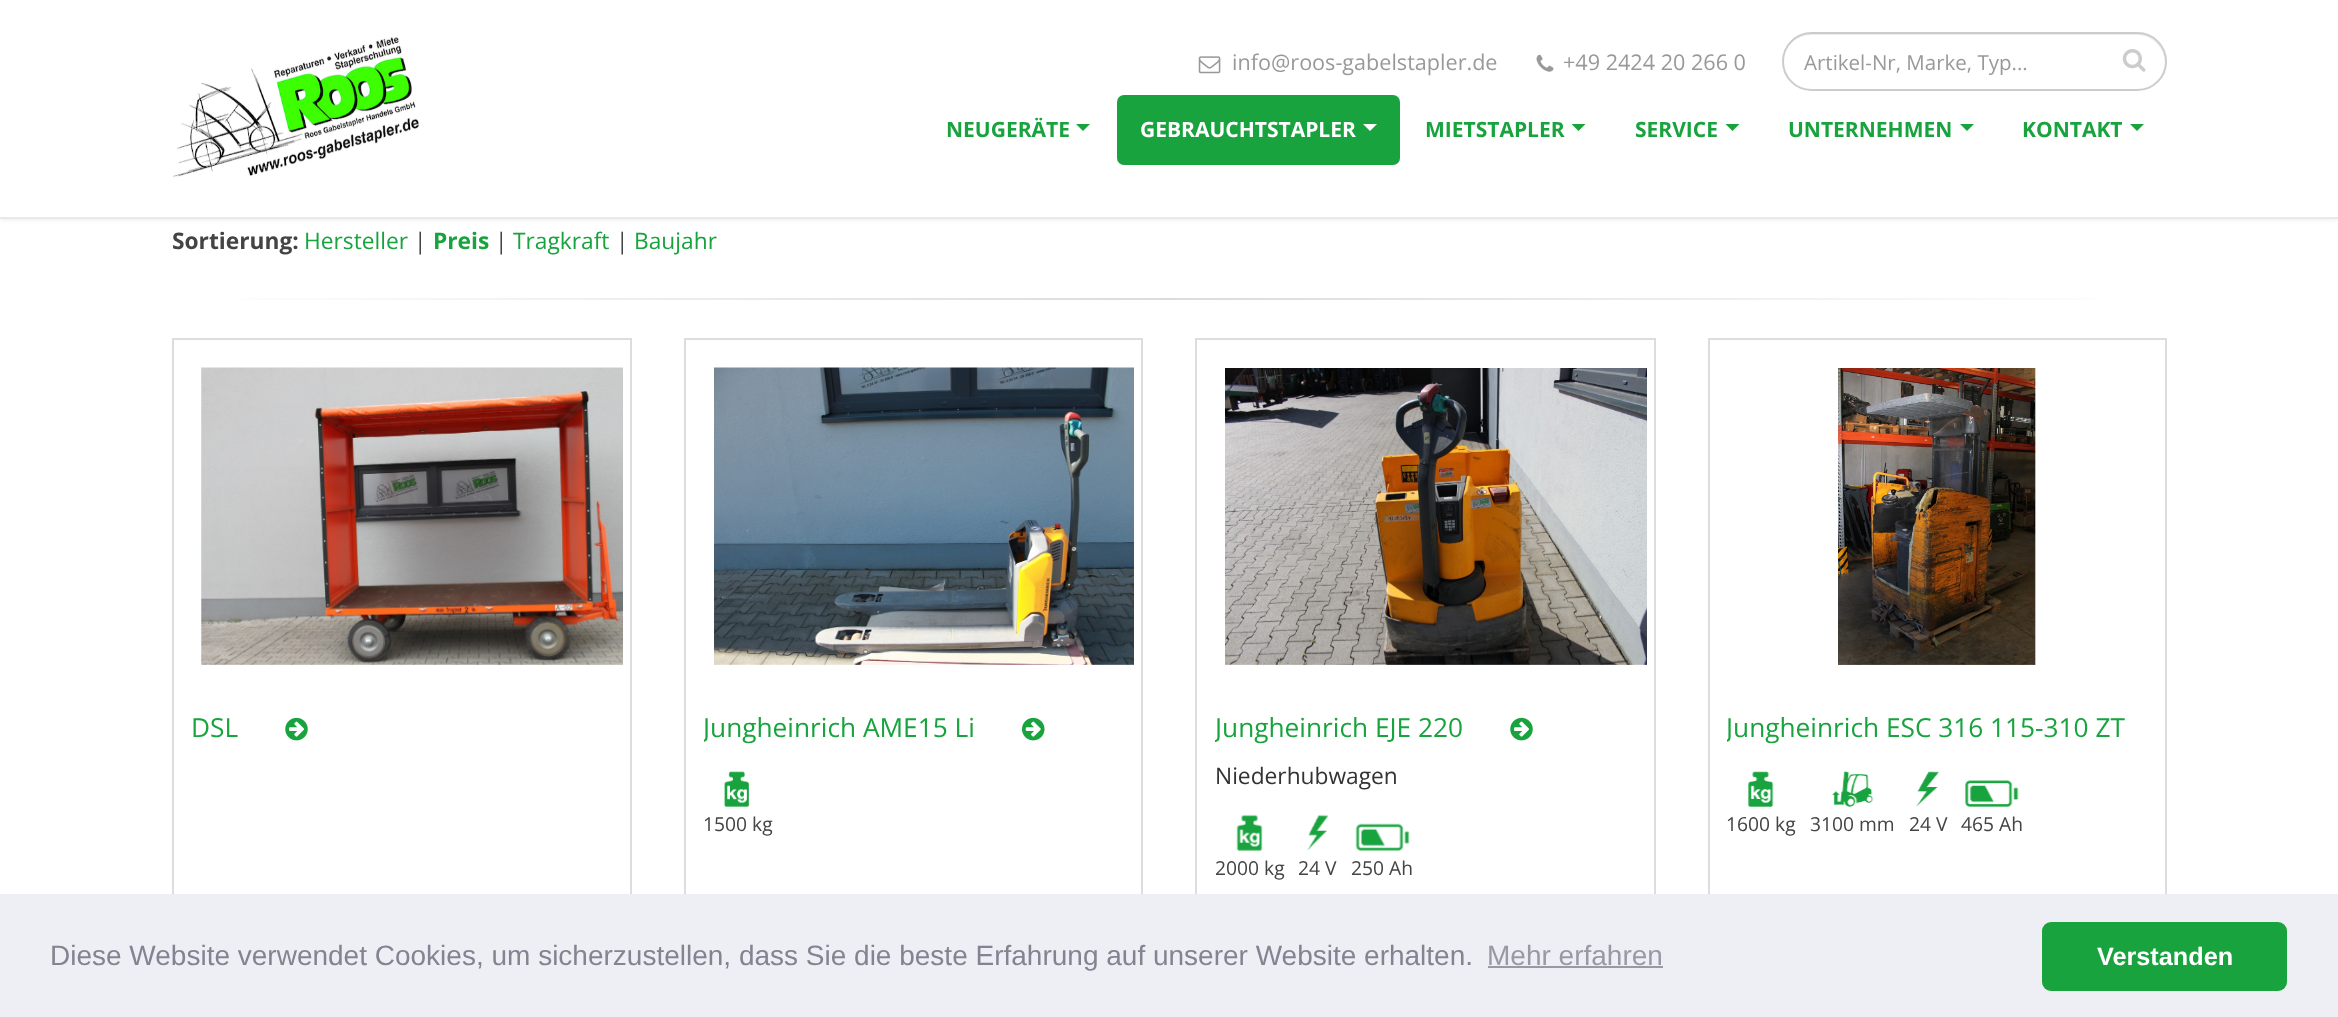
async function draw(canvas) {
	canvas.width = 2338;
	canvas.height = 1017;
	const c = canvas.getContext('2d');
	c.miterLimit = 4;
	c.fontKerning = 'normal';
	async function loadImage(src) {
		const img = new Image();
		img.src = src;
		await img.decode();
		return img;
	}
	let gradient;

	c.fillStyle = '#fff';
	c.fillRect(0, 0, 2338, 1017);
	c.fillStyle = '#0000001a';
	c.filter = 'blur(2.5px)';
	c.beginPath();
	c.rect(0, 0, 2338, 219);
	c.fill();
	c.filter = 'none';
	c.fillStyle = '#fff';
	c.fillRect(0, 0, 2338, 217);
	c.fillStyle = '#e9e9e9';
	c.fillRect(0, 217, 2338, 2);
	c.drawImage(await loadImage('img1.png'), 173, 37, 246, 141);
	c.drawImage(await loadImage('img2.png'), 1198, 56, 23, 18);
	c.font = '21.6px Open Sans';
	c.fillStyle = '#999';
	c.fillText('info@roos-gabelstapler.de', 1232, 70);
	c.drawImage(await loadImage('img3.png'), 1536, 54, 18, 18);
	c.fillText('+49 2424 20 266 0', 1563, 70);
	c.fillStyle = '#ececec';
	c.beginPath();
	c.moveTo(1811, 35);
	c.lineTo(2137, 35);
	c.bezierCurveTo(2152, 35, 2164, 47, 2165, 62);
	c.lineTo(2165, 61);
	c.bezierCurveTo(2165, 46, 2152, 33, 2137, 33);
	c.lineTo(1811, 33);
	c.bezierCurveTo(1796, 33, 1783, 46, 1783, 61);
	c.lineTo(1783, 62);
	c.bezierCurveTo(1784, 47, 1796, 35, 1811, 35);
	c.closePath();
	c.fill();
	c.beginPath();
	c.roundRect(1783, 33, 383, 57, 28.5);
	c.strokeStyle = '#ccc';
	c.lineWidth = 2;
	c.stroke();
	c.font = '20.5px Open Sans';
	c.fillStyle = '#999';
	c.fillText('Artikel-Nr, Marke, Typ...', 1804, 70);
	c.drawImage(await loadImage('img4.png'), 2122, 49, 24, 23);
	c.font = 'bold 21px Open Sans';
	c.fillStyle = '#18a33e';
	c.fillText('NEUGERÄTE', 946, 137);
	c.beginPath();
	c.moveTo(1076, 124);
	c.lineTo(1090, 124);
	c.lineTo(1083, 131);
	c.closePath();
	c.fill();
	c.beginPath();
	c.roundRect(1117, 95, 283, 70, 7);
	c.fill();
	c.fillStyle = '#fff';
	c.fillText('GEBRAUCHTSTAPLER', 1140, 137);
	c.beginPath();
	c.moveTo(1363, 124);
	c.lineTo(1377, 124);
	c.lineTo(1370, 131);
	c.closePath();
	c.fill();
	c.fillStyle = '#18a33e';
	c.fillText('MIETSTAPLER', 1425, 137);
	c.beginPath();
	c.moveTo(1571.5, 124);
	c.lineTo(1585.5, 124);
	c.lineTo(1578.5, 131);
	c.closePath();
	c.fill();
	c.fillText('SERVICE', 1635, 137);
	c.beginPath();
	c.moveTo(1725.5, 124);
	c.lineTo(1739.5, 124);
	c.lineTo(1732.5, 131);
	c.closePath();
	c.fill();
	c.fillText('UNTERNEHMEN', 1788, 137);
	c.beginPath();
	c.moveTo(1960, 124);
	c.lineTo(1974, 124);
	c.lineTo(1967, 131);
	c.closePath();
	c.fill();
	c.fillText('KONTAKT', 2022, 137);
	c.beginPath();
	c.moveTo(2130, 124);
	c.lineTo(2144, 124);
	c.lineTo(2137, 131);
	c.closePath();
	c.fill();
	c.font = 'bold 22.75px Open Sans';
	c.fillStyle = '#444';
	c.fillText('Sortierung:', 172, 249);
	c.font = '22.75px Open Sans';
	c.fillStyle = '#18a33e';
	c.fillText('Hersteller', 304, 249);
	c.fillStyle = '#444';
	c.fillText('|', 414, 249);
	c.font = 'bold 22.75px Open Sans';
	c.fillStyle = '#18a33e';
	c.fillText('Preis', 433, 249);
	c.font = '22.75px Open Sans';
	c.fillStyle = '#444';
	c.fillText('|', 495, 249);
	c.fillStyle = '#18a33e';
	c.fillText('Tragkraft', 513, 249);
	c.fillStyle = '#444';
	c.fillText('|', 616, 249);
	c.fillStyle = '#18a33e';
	c.fillText('Baujahr', 634, 249);
	gradient = c.createLinearGradient(172, 298, 2167, 298);
	gradient.addColorStop(0, '#fff');
	gradient.addColorStop(0.5, '#dbdbdb');
	gradient.addColorStop(1, '#fff');
	c.fillStyle = gradient;
	c.fillRect(241, 298, 1857, 2);
	c.strokeStyle = '#ddd';
	c.strokeRect(173, 339, 458, 575);
	c.drawImage(await loadImage('img5.png'), 201, 367, 422, 298);
	c.font = '26.25px Open Sans';
	c.fillStyle = '#18a33e';
	c.fillText('DSL', 191, 737);
	c.drawImage(await loadImage('img6.png'), 285, 717, 23, 24);
	c.strokeRect(685, 339, 457, 575);
	c.drawImage(await loadImage('img7.png'), 714, 367, 420, 298);
	c.save();
	c.beginPath();
	c.rect(704, 709, 420, 38);
	c.clip();
	c.fillText('Jungheinrich AME15 Li', 703, 737);
	c.restore();
	c.drawImage(await loadImage('img8.png'), 1022, 717, 23, 24);
	c.drawImage(await loadImage('img9.png'), 724, 771, 25, 36);
	c.font = '19.25px Open Sans';
	c.fillStyle = '#444';
	c.fillText('1500 kg', 703, 831);
	c.strokeRect(1196, 339, 459, 575);
	c.drawImage(await loadImage('img10.png'), 1225, 368, 422, 297);
	c.save();
	c.beginPath();
	c.rect(1215, 709, 421, 38);
	c.clip();
	c.font = '26.25px Open Sans';
	c.fillStyle = '#18a33e';
	c.fillText('Jungheinrich EJE 220', 1215, 737);
	c.restore();
	c.drawImage(await loadImage('img6.png'), 1510, 717, 23, 24);
	c.font = '22.75px Open Sans';
	c.fillStyle = '#333';
	c.fillText('Niederhubwagen', 1215, 784);
	c.drawImage(await loadImage('img11.png'), 1236, 814, 27, 37);
	c.font = '19.25px Open Sans';
	c.fillStyle = '#444';
	c.fillText('2000 kg', 1215, 875);
	c.drawImage(await loadImage('img12.png'), 1307, 814, 22, 37);
	c.fillText('24 V', 1298, 875);
	c.drawImage(await loadImage('img13.png'), 1355, 823, 55, 28);
	c.fillText('250 Ah', 1351, 875);
	c.strokeRect(1709, 339, 457, 575);
	c.drawImage(await loadImage('img14.png'), 1838, 368, 198, 297);
	c.save();
	c.beginPath();
	c.rect(1727, 709, 420, 38);
	c.clip();
	c.font = '26.25px Open Sans';
	c.fillStyle = '#18a33e';
	c.fillText('Jungheinrich ESC 316 115-310 ZT', 1726, 737);
	c.restore();
	c.drawImage(await loadImage('img15.png'), 1748, 771, 26, 36);
	c.fillText('1600 kg', 1726, 831);
	c.drawImage(await loadImage('img16.png'), 1832, 771, 42, 36);
	c.fillText('3100 mm', 1810, 831);
	c.drawImage(await loadImage('img17.png'), 1916, 771, 24, 36);
	c.fillText('24 V', 1909, 831);
	c.drawImage(await loadImage('img18.png'), 1965, 780, 54, 27);
	c.fillText('465 Ah', 1961, 831);
	c.fillStyle = '#edeff5';
	c.fillRect(0, 894, 2338, 123);
	c.font = '28px Liberation Sans';
	c.fillStyle = '#838391';
	c.fillText('Diese Website verwendet Cookies, um sicherzustellen, dass Sie die beste Erfahrung auf unserer Website erhalten.', 50, 965);
	c.fillStyle = '#9899a5';
	c.fillText('Mehr erfahren', 1487, 965);
	c.fillRect(1488, 966, 175, 2);
	c.fillStyle = '#18a33e';
	c.beginPath();
	c.roundRect(2042, 922, 245, 69, 9);
	c.fill();
	c.font = 'bold 25.25px Liberation Sans';
	c.fillStyle = '#fff';
	c.fillText('Verstanden', 2097, 965);
}

draw(document.querySelector('canvas'));
